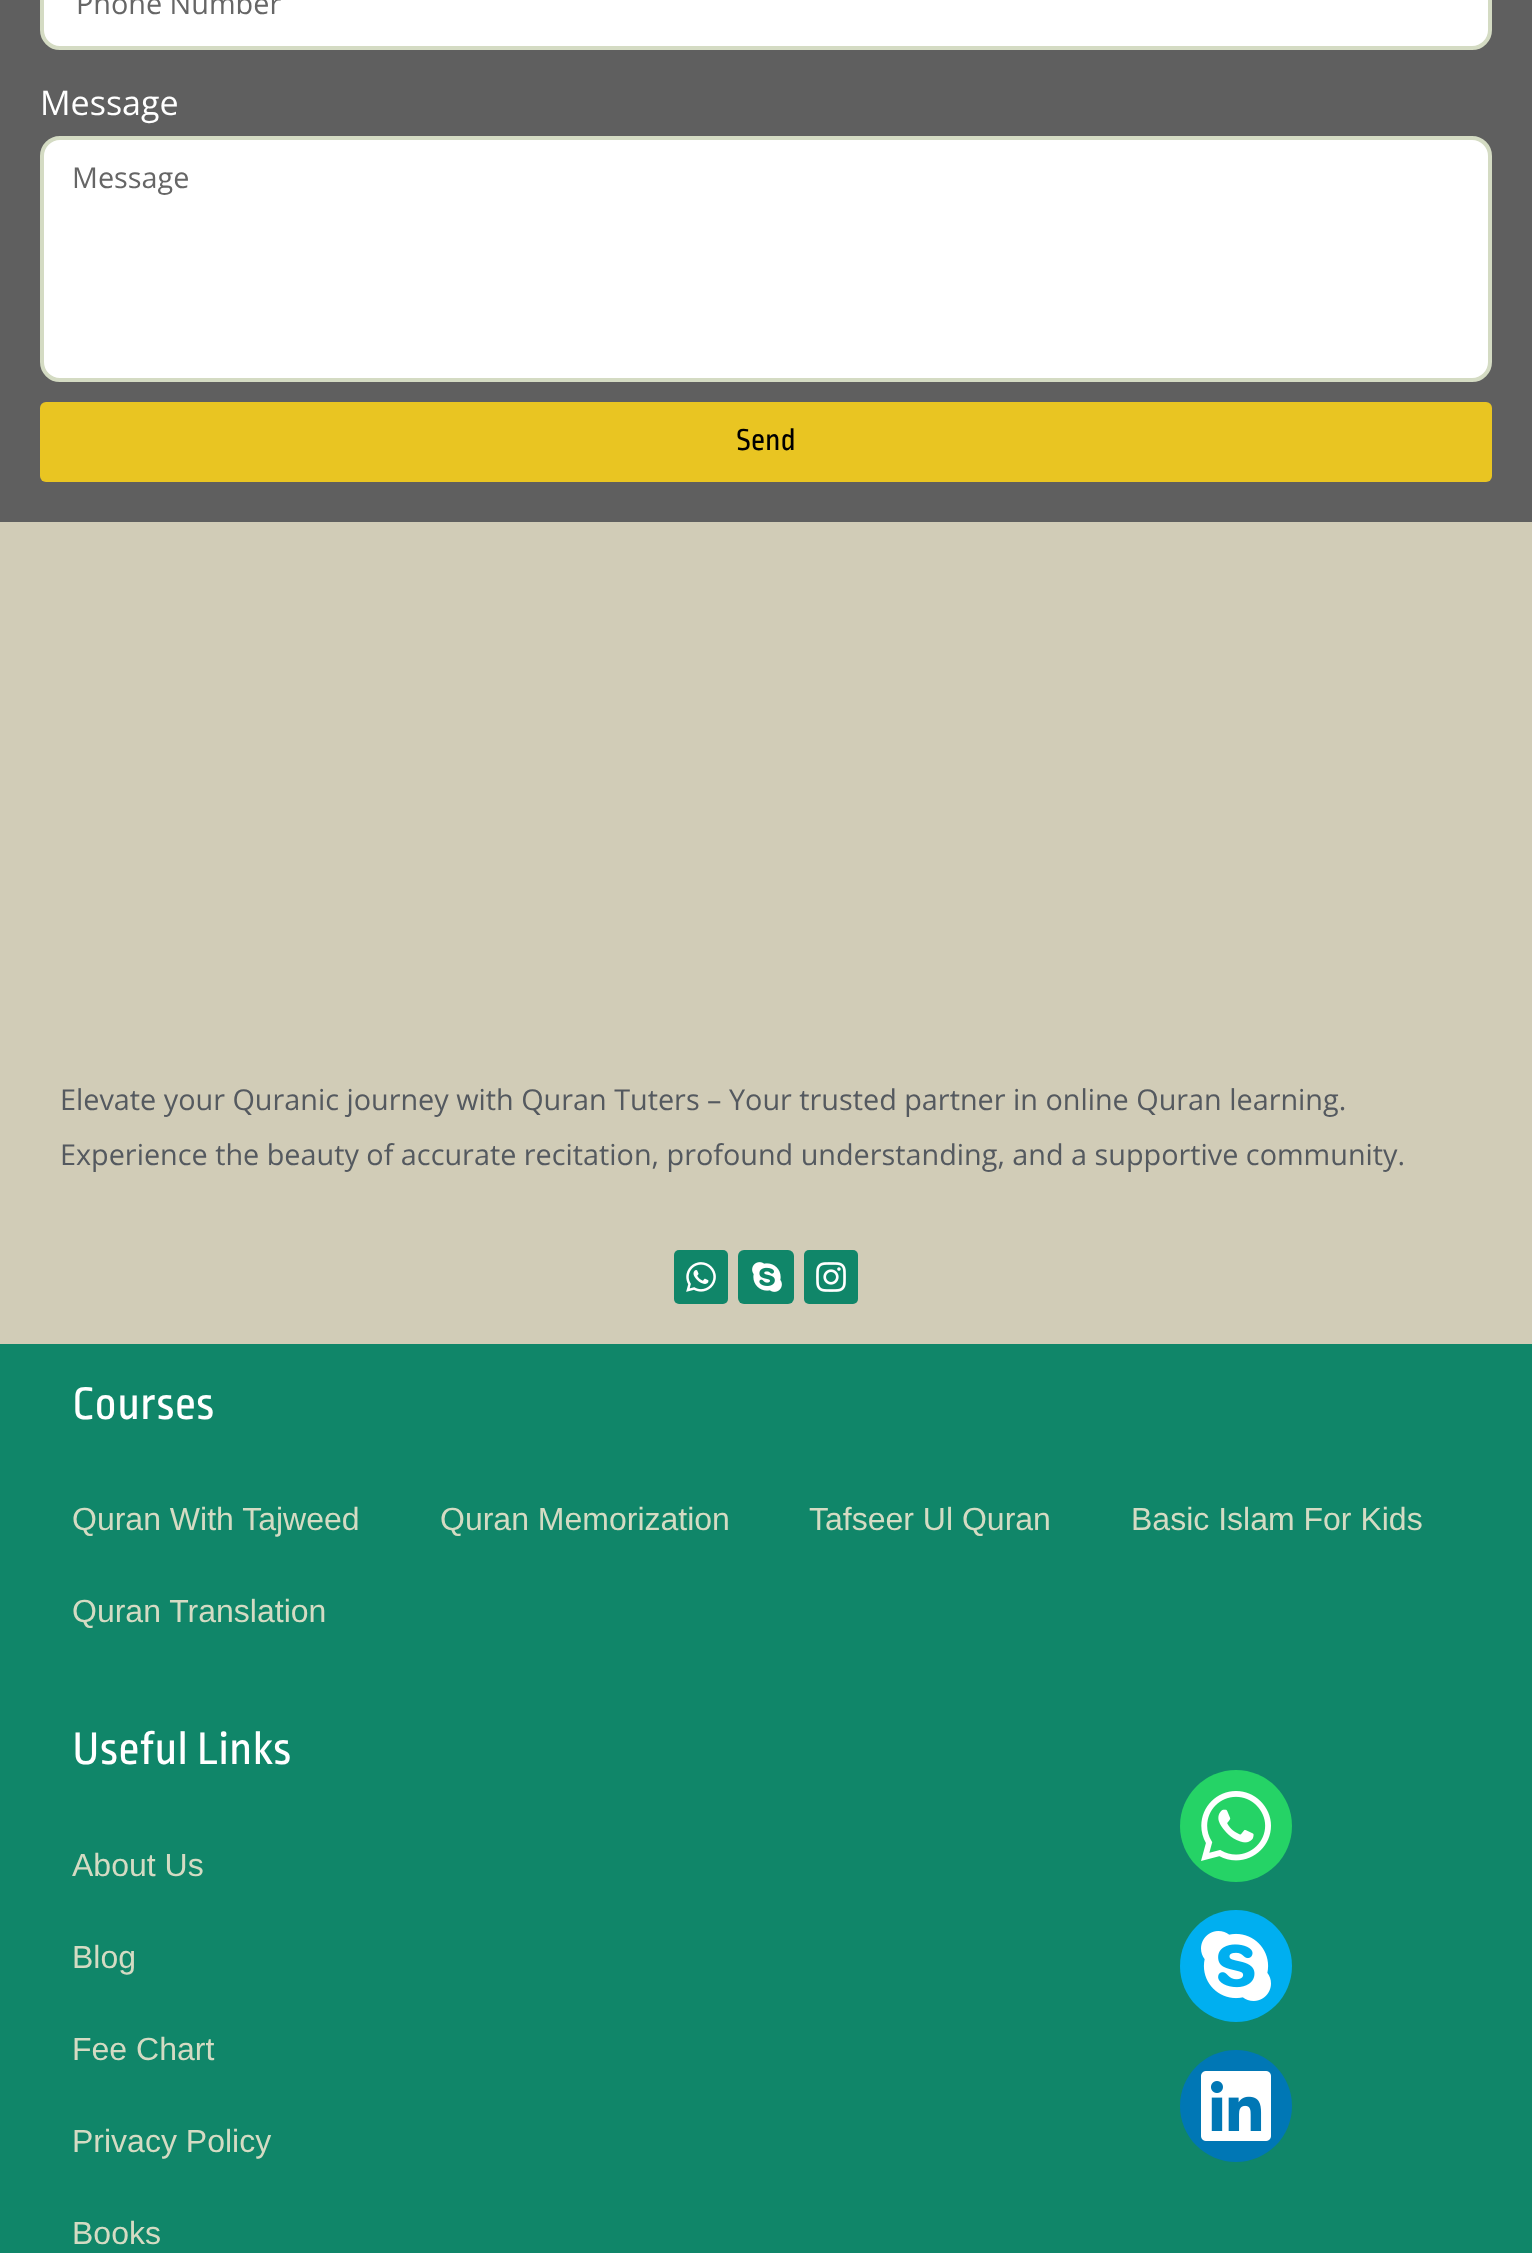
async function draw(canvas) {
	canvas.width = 1532;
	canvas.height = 2253;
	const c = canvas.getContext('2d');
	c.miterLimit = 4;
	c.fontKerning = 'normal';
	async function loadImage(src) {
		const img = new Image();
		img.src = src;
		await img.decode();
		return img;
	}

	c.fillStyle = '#5f5f5f';
	c.fillRect(0, 0, 1532, 2253);
	c.fillStyle = '#fff';
	c.beginPath();
	c.roundRect(42, -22, 1448, 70, 18);
	c.fill();
	c.strokeStyle = '#d4dbc3';
	c.lineWidth = 4;
	c.stroke();
	c.font = '28.8px Open Sans';
	c.fillStyle = '#666';
	c.fillText('Phone Number', 76, 14);
	c.font = '34px Open Sans';
	c.fillStyle = '#fff';
	c.fillText('Message', 40, 115);
	c.beginPath();
	c.roundRect(42, 138, 1448, 242, 18);
	c.fill();
	c.stroke();
	c.font = '28.8px Open Sans';
	c.fillStyle = '#666';
	c.fillText('Message', 72, 188);
	c.fillStyle = '#e9c522';
	c.beginPath();
	c.roundRect(40, 402, 1452, 80, 6);
	c.fill();
	c.font = '32px Ropa Sans';
	c.fillStyle = '#000';
	c.fillText('Send', 736, 450);
	c.fillStyle = '#108669';
	c.fillRect(0, 1344, 1532, 909);
	c.fillStyle = '#d1ccb7';
	c.fillRect(0, 522, 1532, 822);
	c.font = '28.8px Open Sans';
	c.fillStyle = '#54595f';
	c.fillText('Elevate your Quranic journey with Quran Tuters – Your trusted partner in online Quran learning.', 60, 1110);
	c.fillText('Experience the beauty of accurate recitation, profound understanding, and a supportive community.', 60, 1165);
	c.fillStyle = '#108669';
	c.beginPath();
	c.roundRect(674, 1250, 54, 54, 5);
	c.fill();
	c.drawImage(await loadImage('img1.png'), 686, 1262, 30, 30);
	c.beginPath();
	c.roundRect(738, 1250, 56, 54, 6);
	c.fill();
	c.drawImage(await loadImage('img2.png'), 752, 1262, 30, 30);
	c.beginPath();
	c.roundRect(804, 1250, 54, 54, 5);
	c.fill();
	c.drawImage(await loadImage('img3.png'), 816, 1262, 30, 30);
	c.font = '48px Ropa Sans';
	c.fillStyle = '#fff';
	c.fillText('Courses', 72, 1419);
	c.font = '32px Liberation Sans';
	c.fillStyle = '#d4dbc3';
	for (const [text, x, y] of [
		['Quran With Tajweed', 72, 1530],
		['Quran Memorization', 440, 1530],
		['Tafseer Ul Quran', 809, 1530],
		['Basic Islam For Kids', 1131, 1530],
		['Quran Translation', 72, 1622],
	]) {
		c.fillText(text, x, y);
	}
	c.font = '48px Ropa Sans';
	c.fillStyle = '#fff';
	c.fillText('Useful Links', 72, 1764);
	c.font = '32px Liberation Sans';
	c.fillStyle = '#d4dbc3';
	for (const [text, x, y] of [
		['About Us', 72, 1876],
		['Blog', 72, 1968],
		['Fee Chart', 72, 2060],
		['Privacy Policy', 72, 2152],
		['Books', 72, 2244],
	]) {
		c.fillText(text, x, y);
	}
	c.fillStyle = '#25d366';
	c.beginPath();
	c.arc(1236, 1826, 56, 0, 2 * Math.PI);
	c.fill();
	c.drawImage(await loadImage('img4.png'), 1201, 1791, 70, 70);
	c.fillStyle = '#00aff0';
	c.beginPath();
	c.arc(1236, 1966, 56, 0, 2 * Math.PI);
	c.fill();
	c.drawImage(await loadImage('img5.png'), 1201, 1931, 70, 70);
	c.fillStyle = '#0077b5';
	c.beginPath();
	c.arc(1236, 2106, 56, 0, 2 * Math.PI);
	c.fill();
	c.drawImage(await loadImage('img6.png'), 1201, 2071, 70, 70);
}

draw(document.querySelector('canvas'));
